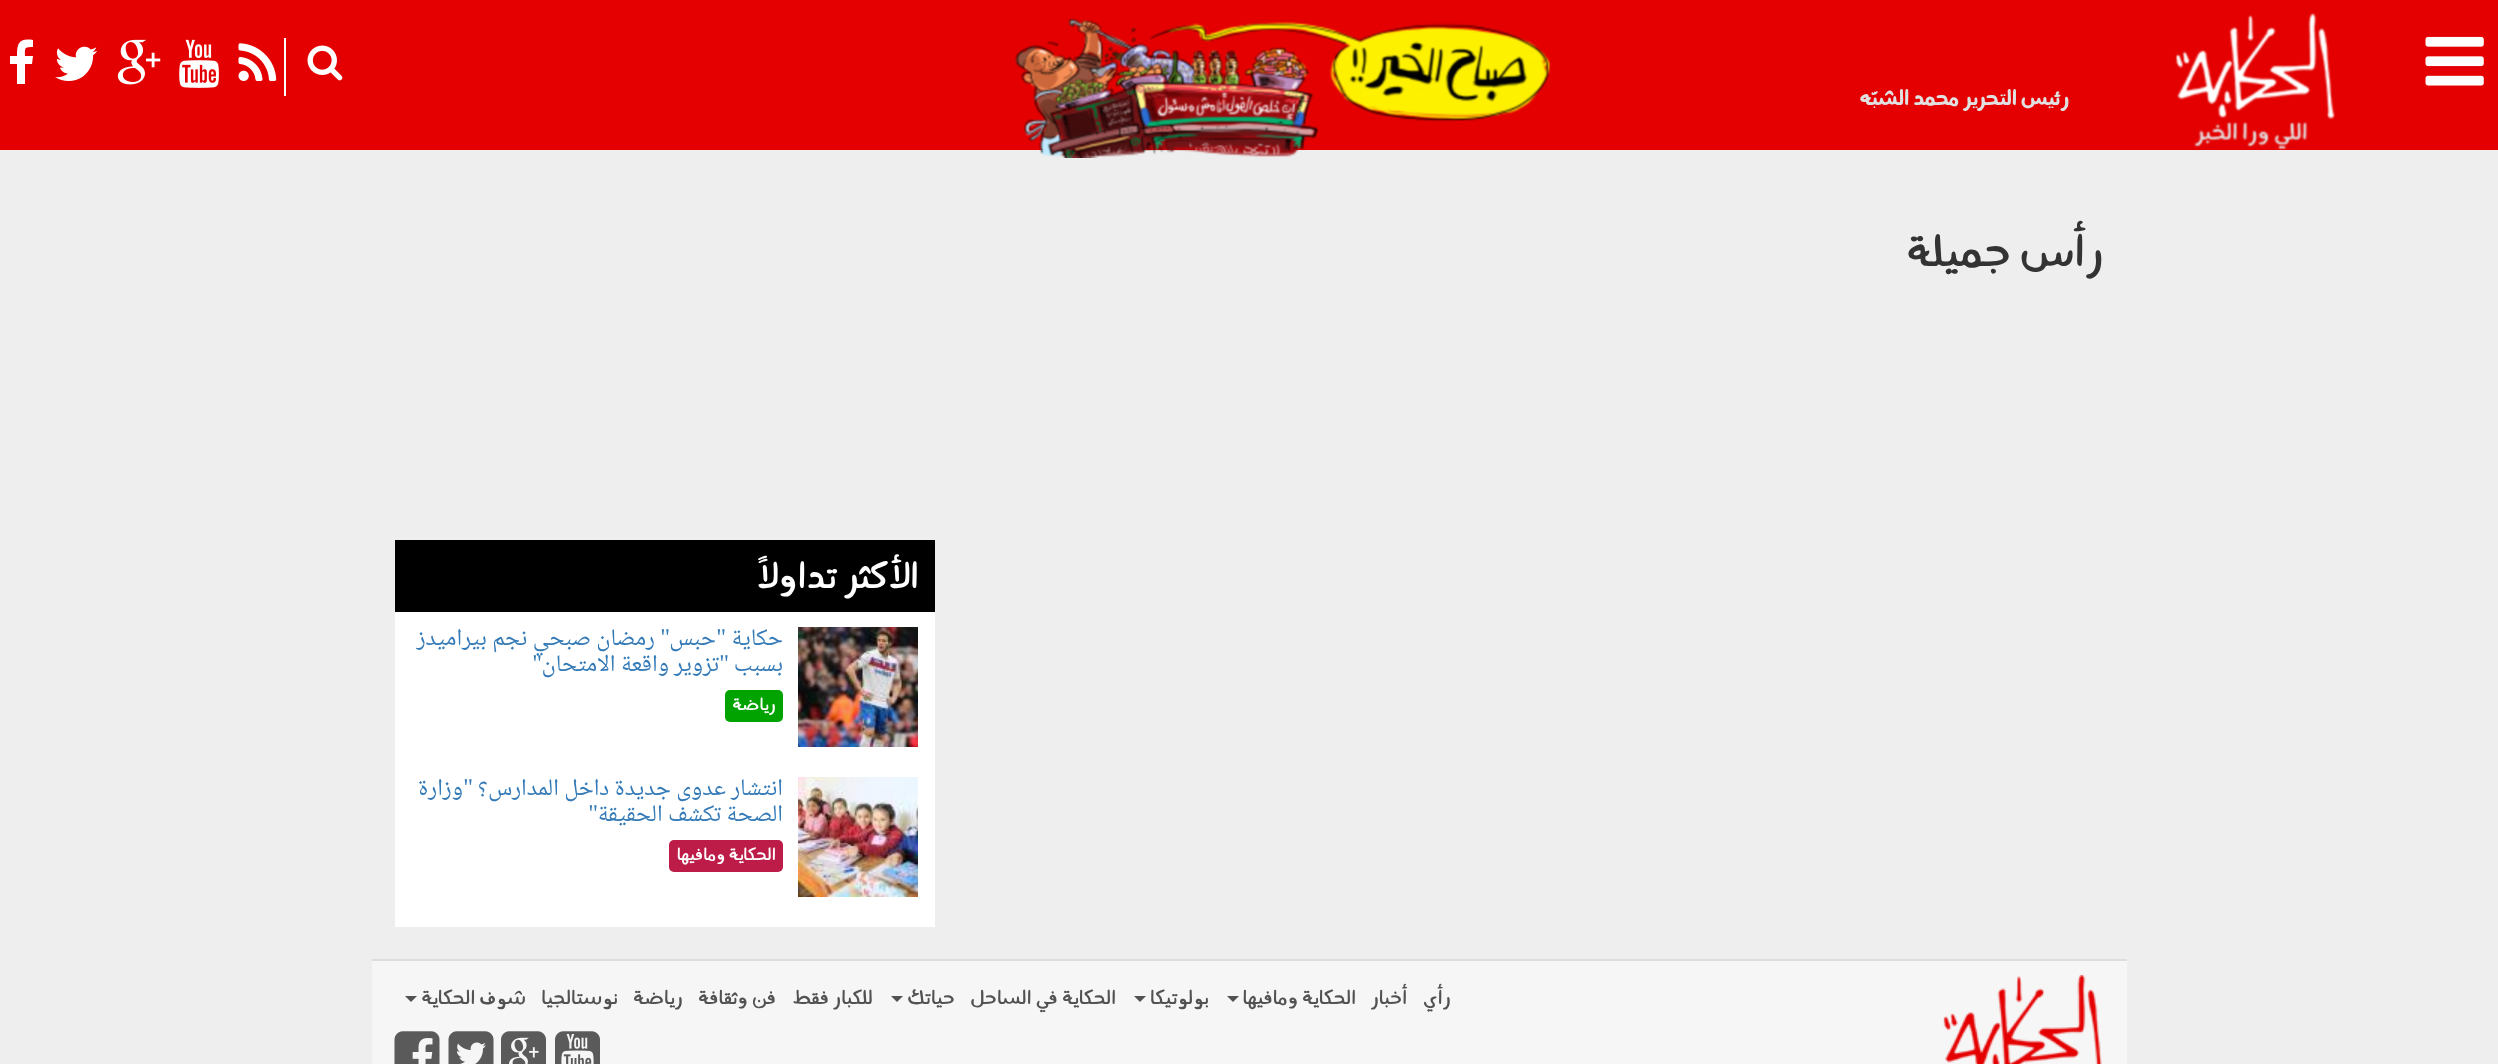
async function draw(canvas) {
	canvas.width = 2498;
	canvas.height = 1064;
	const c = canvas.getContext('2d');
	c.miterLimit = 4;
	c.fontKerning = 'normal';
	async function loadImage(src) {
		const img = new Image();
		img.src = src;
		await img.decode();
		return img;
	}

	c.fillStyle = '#eee';
	c.fillRect(0, 0, 2498, 1064);
	c.fillStyle = '#e40000';
	c.fillRect(0, 0, 2498, 150);
	c.drawImage(await loadImage('img1.png'), 2425, 36, 59, 50);
	c.drawImage(await loadImage('img2.png'), 2175, 13, 160, 137);
	c.drawImage(await loadImage('img3.png'), 1014, 18, 536, 140);
	c.fillStyle = '#fff';
	c.fillRect(284, 38, 2, 58);
	c.drawImage(await loadImage('img4.png'), 307, 45, 36, 36);
	c.drawImage(await loadImage('img5.png'), 238, 43, 39, 38);
	c.drawImage(await loadImage('img6.png'), 179, 39, 40, 49);
	c.drawImage(await loadImage('img7.png'), 117, 39, 44, 46);
	c.drawImage(await loadImage('img8.png'), 55, 46, 43, 35);
	c.beginPath();
	c.moveTo(33, 40);
	c.lineTo(33, 47);
	c.bezierCurveTo(24, 47, 25, 48, 25, 56);
	c.lineTo(33, 56);
	c.lineTo(32, 64);
	c.lineTo(25, 64);
	c.lineTo(25, 84);
	c.lineTo(17, 84);
	c.lineTo(17, 64);
	c.lineTo(10, 64);
	c.lineTo(10, 56);
	c.lineTo(17, 56);
	c.bezierCurveTo(17, 43, 19, 38, 33, 40);
	c.closePath();
	c.fill();
	c.direction = 'rtl';
	c.font = 'bold 25.5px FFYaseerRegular';
	c.fillStyle = '#e1e1e1';
	c.fillText('رئيس التحرير محمد الشبّه', 2069, 105);
	c.font = '54px FFYaseerRegular';
	c.fillStyle = '#333';
	c.fillText('رأس جميلة', 2104, 266);
	c.fillStyle = '#fff';
	c.fillRect(395, 612, 540, 315);
	c.fillStyle = '#000';
	c.fillRect(395, 540, 540, 72);
	c.font = '45px FFYaseerRegular';
	c.fillStyle = '#fff';
	c.fillText('الأكثر تداولاً', 919, 588);
	c.drawImage(await loadImage('img9.png'), 798, 627, 120, 120);
	c.font = '24px Noto Naskh Arabic';
	c.fillStyle = '#337ab7';
	c.fillText('حكاية', 783, 645);
	c.font = '24px Liberation Serif';
	c.fillText('"', 726, 645);
	c.fillText('"', 670, 645);
	c.font = '24px Noto Naskh Arabic';
	c.fillText('رمضان صبحي نجم بيراميدز', 655, 645);
	c.fillText('حبس', 716, 645);
	c.font = '24px Liberation Serif';
	c.fillText('"', 729, 671);
	c.font = '24px Noto Naskh Arabic';
	c.fillText('تزوير واقعة الامتحان', 719, 671);
	c.font = '24px Liberation Serif';
	c.fillText('"', 542, 671);
	c.font = '24px Noto Naskh Arabic';
	c.fillText('بسبب', 783, 671);
	c.fillStyle = '#00a300';
	c.beginPath();
	c.roundRect(725, 690, 58, 32, 5);
	c.fill();
	c.font = '21px FFYaseerRegular';
	c.fillStyle = '#fff';
	c.fillText('رياضة', 776, 710);
	c.drawImage(await loadImage('img10.png'), 798, 777, 120, 120);
	c.font = '24px Noto Naskh Arabic';
	c.fillStyle = '#337ab7';
	c.fillText('انتشار عدوى جديدة داخل المدارس؟', 783, 795);
	c.font = '24px Liberation Serif';
	c.fillText('"', 473, 795);
	c.font = '24px Noto Naskh Arabic';
	c.fillText('وزارة', 463, 795);
	c.fillText('الصحة تكشف الحقيقة', 783, 821);
	c.font = '24px Liberation Serif';
	c.fillText('"', 598, 821);
	c.fillStyle = '#bd1c49';
	c.beginPath();
	c.roundRect(669, 840, 114, 32, 5);
	c.fill();
	c.font = '21px FFYaseerRegular';
	c.fillStyle = '#fff';
	c.fillText('الحكاية ومافيها', 776, 860);
	c.fillStyle = '#f6f6f6';
	c.fillRect(372, 961, 1755, 103);
	c.fillStyle = '#ddd';
	c.fillRect(372, 959, 1755, 2);
	c.drawImage(await loadImage('img11.png'), 1943, 975, 159, 89);
	c.font = '24px FFYaseerRegular';
	c.fillStyle = '#525252';
	for (const [text, x, y] of [
		['رأي', 1451, 1004],
		['أخبار', 1407, 1004],
		['الحكاية ومافيها', 1356, 1004],
	]) {
		c.fillText(text, x, y);
	}
	c.beginPath();
	c.moveTo(1227, 996);
	c.lineTo(1239, 996);
	c.lineTo(1233, 1002);
	c.closePath();
	c.fill();
	c.fillText('بولوتيكا', 1209, 1004);
	c.beginPath();
	c.moveTo(1134, 996);
	c.lineTo(1146, 996);
	c.lineTo(1140, 1002);
	c.closePath();
	c.fill();
	c.fillText('الحكاية في الساحل', 1116, 1004);
	c.fillText('حياتك', 955, 1004);
	c.beginPath();
	c.moveTo(891, 996);
	c.lineTo(903, 996);
	c.lineTo(897, 1002);
	c.closePath();
	c.fill();
	for (const [text, x, y] of [
		['للكبار فقط', 873, 1004],
		['فن وثقافة', 776, 1004],
		['رياضة', 683, 1004],
		['نوستالجيا', 618, 1004],
		['شوف الحكاية', 526, 1004],
	]) {
		c.fillText(text, x, y);
	}
	c.beginPath();
	c.moveTo(405, 996);
	c.lineTo(417, 996);
	c.lineTo(411, 1002);
	c.closePath();
	c.fill();
	c.drawImage(await loadImage('img12.png'), 555, 1031, 45, 33);
	c.drawImage(await loadImage('img13.png'), 501, 1031, 45, 33);
	c.drawImage(await loadImage('img14.png'), 448, 1031, 46, 33);
	c.drawImage(await loadImage('img15.png'), 394, 1031, 46, 33);
}

draw(document.querySelector('canvas'));
